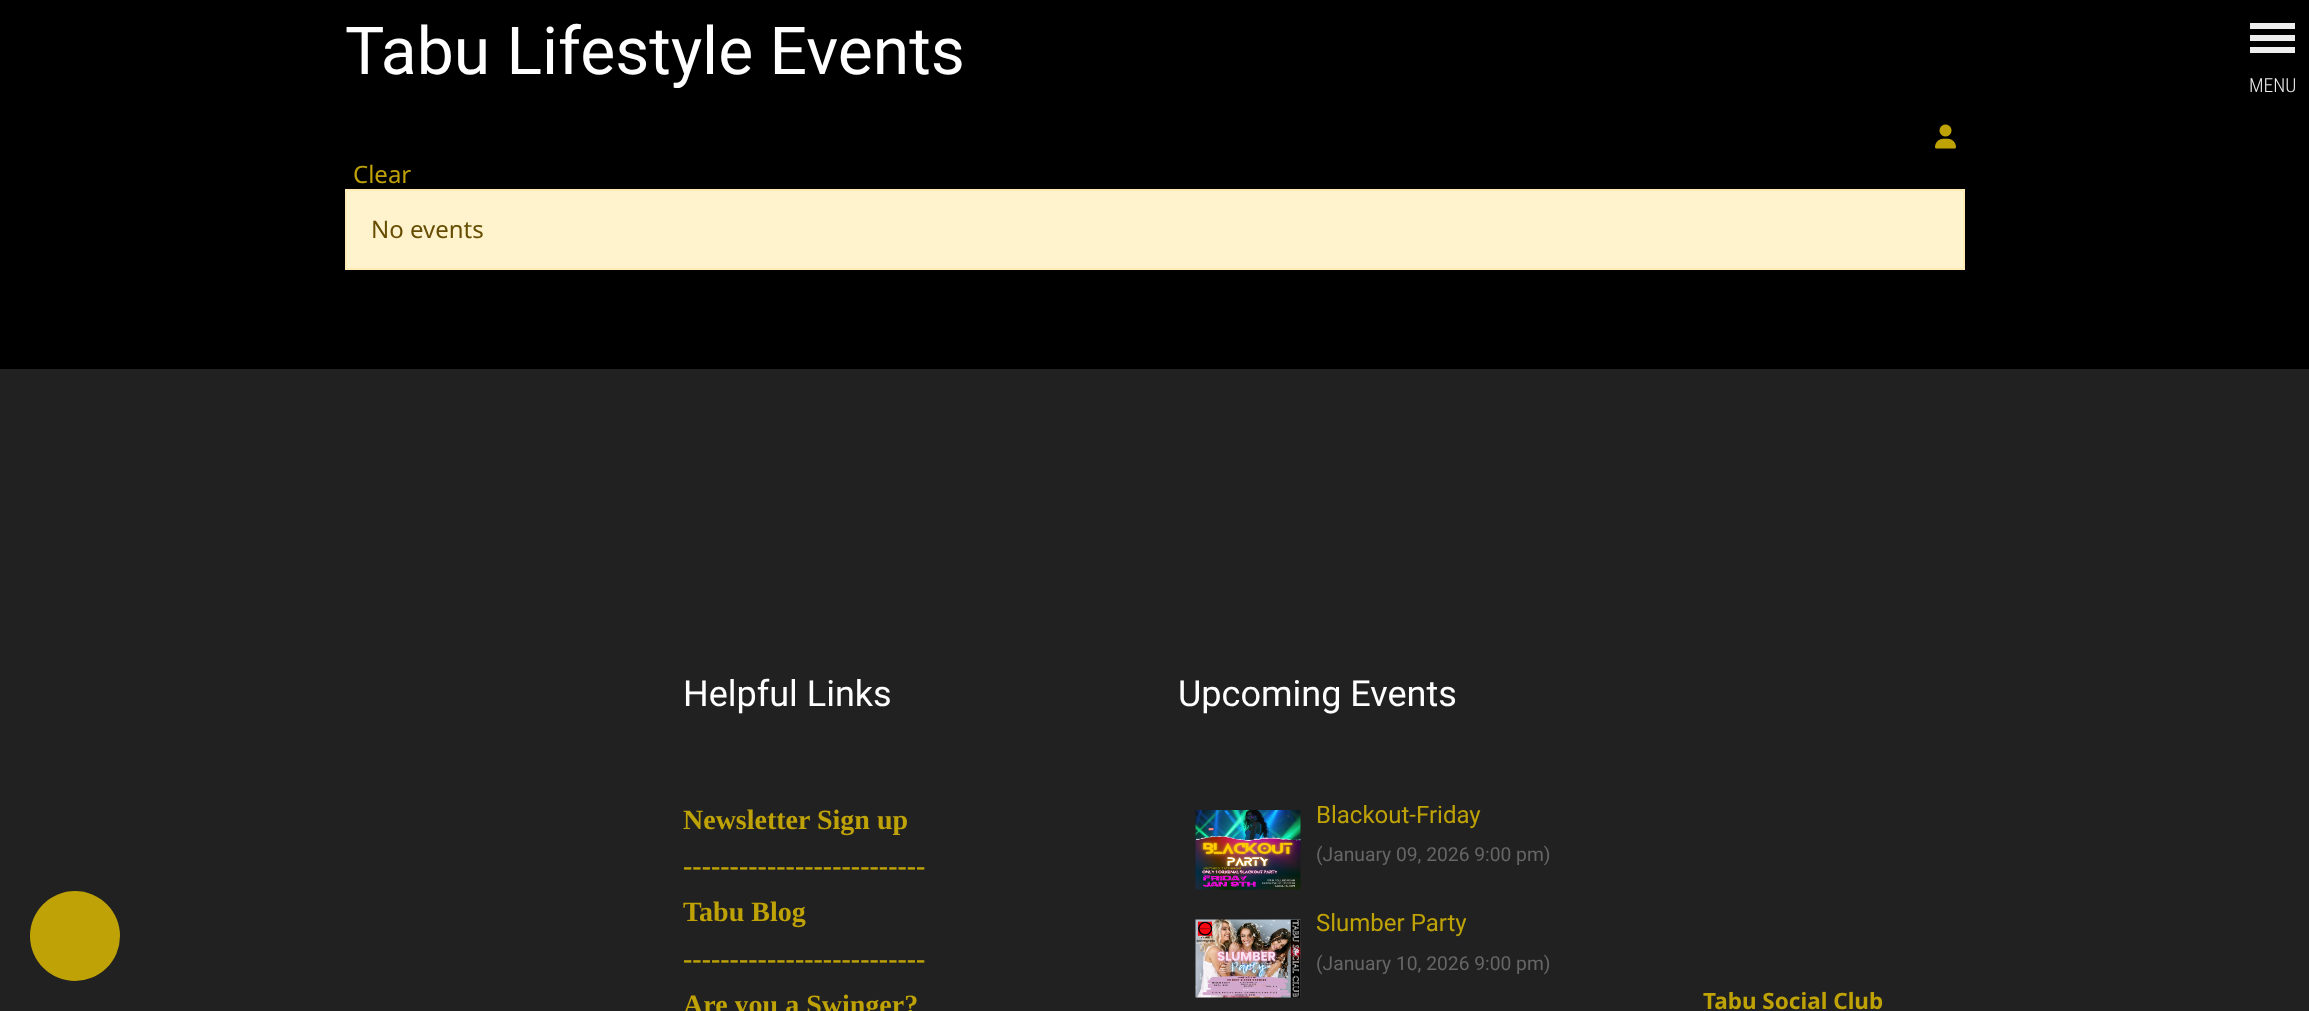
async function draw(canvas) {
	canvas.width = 2309;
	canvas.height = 1011;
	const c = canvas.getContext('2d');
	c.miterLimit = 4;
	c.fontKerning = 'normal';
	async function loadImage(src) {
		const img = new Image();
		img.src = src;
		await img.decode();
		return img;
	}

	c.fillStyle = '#000';
	c.fillRect(0, 0, 2309, 1011);
	c.font = '66px Roboto';
	c.fillStyle = '#fff';
	c.fillText('Tabu Lifestyle Events', 345, 74);
	c.drawImage(await loadImage('img1.png'), 1935, 124, 21, 25);
	c.font = '24px Noto Sans';
	c.fillStyle = '#bfa206';
	c.fillText('Clear', 353, 183);
	c.fillStyle = '#fff3cd';
	c.beginPath();
	c.rect(346, 190, 1618, 79);
	c.fill();
	c.strokeStyle = '#ffecb5';
	c.lineWidth = 2;
	c.stroke();
	c.fillStyle = '#664d03';
	c.fillText('No events', 371, 238);
	c.fillStyle = '#212121';
	c.fillRect(0, 369, 2309, 642);
	c.fillStyle = '#bfa206';
	c.beginPath();
	c.arc(75, 936, 45, 0, 2 * Math.PI);
	c.fill();
	c.font = '36px Roboto';
	c.fillStyle = '#fff';
	c.fillText('Helpful Links', 683, 706);
	c.font = 'bold 28px Liberation Serif';
	c.fillStyle = '#bfa206';
	for (const [text, x, y] of [
		['Newsletter Sign up', 683, 829],
		['--------------------------', 683, 875],
		['Tabu Blog', 683, 921],
		['--------------------------', 683, 968],
		['Are you a Swinger?', 683, 1014],
	]) {
		c.fillText(text, x, y);
	}
	c.font = '36px Roboto';
	c.fillStyle = '#fff';
	c.fillText('Upcoming Events', 1178, 706);
	c.drawImage(await loadImage('img2.png'), 1195, 810, 106, 80);
	c.font = '24px Roboto';
	c.fillStyle = '#bfa206';
	c.fillText('Blackout-Friday', 1316, 823);
	c.font = '19.25px Roboto';
	c.fillStyle = '#666';
	c.fillText('(January 09, 2026 9:00 pm)', 1316, 861);
	c.drawImage(await loadImage('img3.png'), 1195, 919, 106, 79);
	c.font = '24px Roboto';
	c.fillStyle = '#bfa206';
	c.fillText('Slumber Party', 1316, 931);
	c.font = '19.25px Roboto';
	c.fillStyle = '#666';
	c.fillText('(January 10, 2026 9:00 pm)', 1316, 970);
	c.font = 'bold 22.5px Noto Sans';
	c.fillStyle = '#bfa206';
	c.fillText('Tabu Social Club', 1703, 1009);
	for (const [x, y, w, h, color] of [
		[2250, 23, 45, 6, '#eee'],
		[2250, 35, 45, 6, '#eee'],
		[2250, 47, 45, 6, '#eee'],
	]) {
		c.fillStyle = color;
		c.fillRect(x, y, w, h);
	}
	c.font = '300 19.5px Roboto Condensed';
	c.fillText('MENU', 2249, 92);
}

draw(document.querySelector('canvas'));
